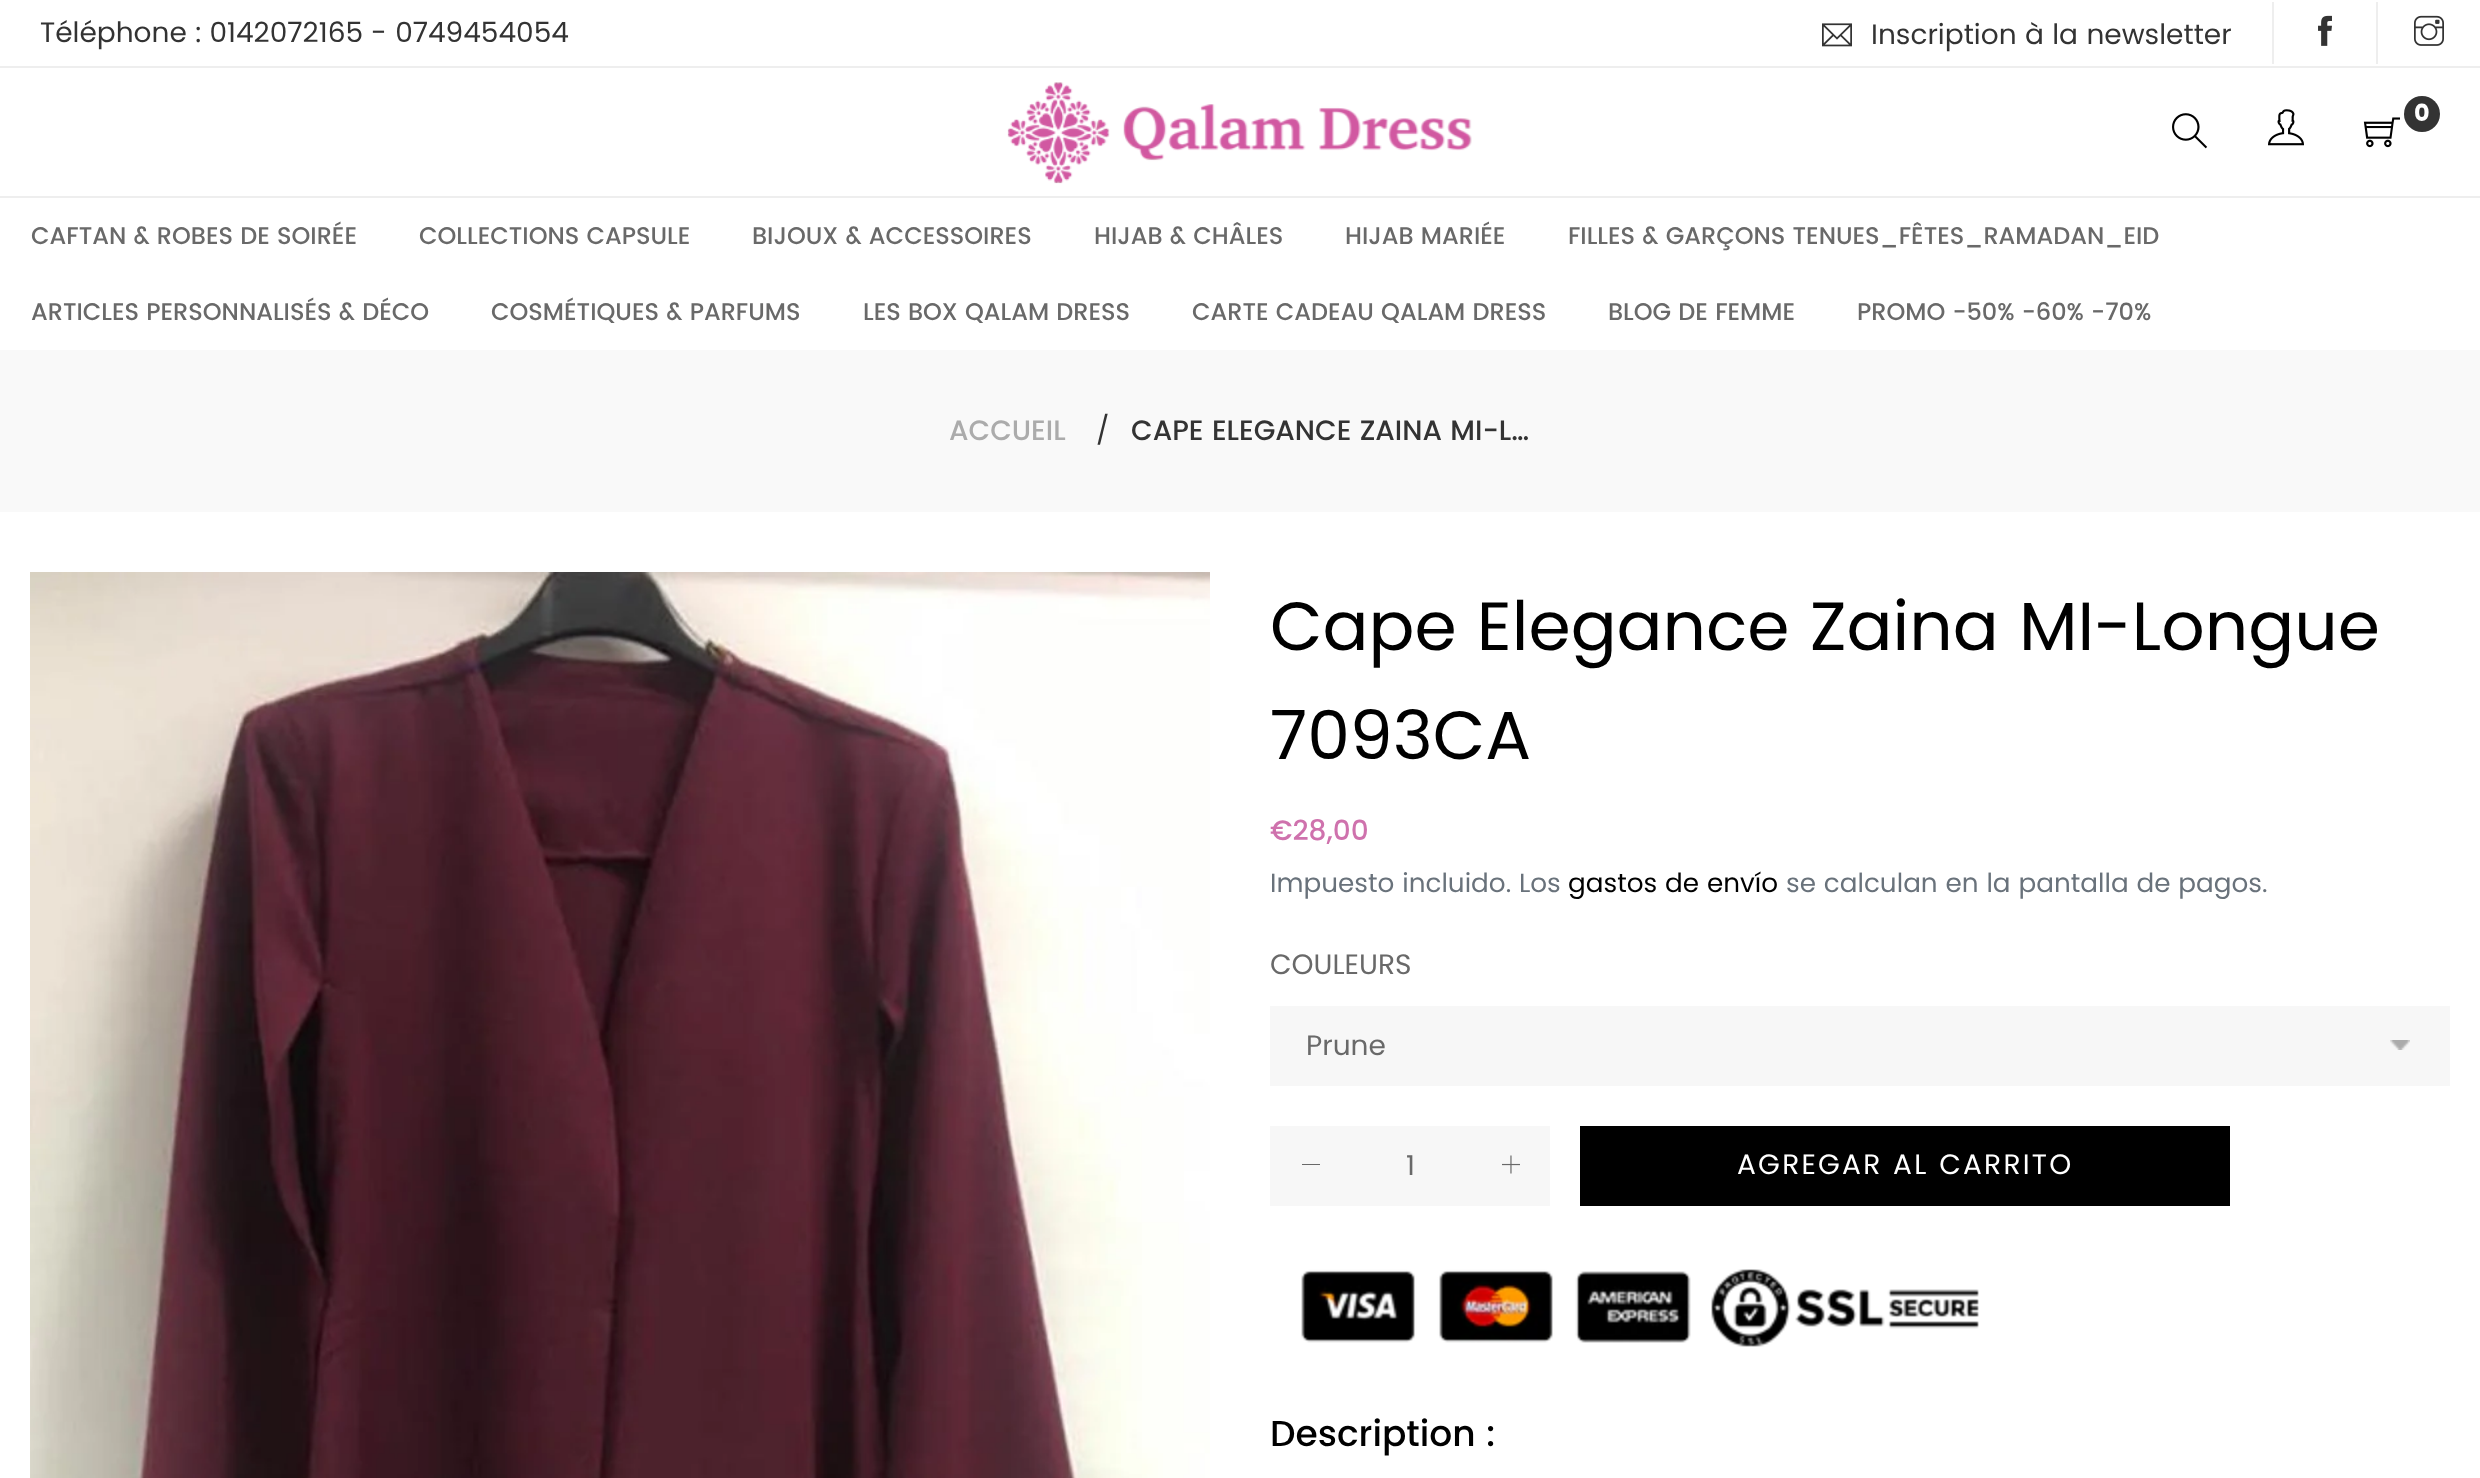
async function draw(canvas) {
	canvas.width = 2480;
	canvas.height = 1478;
	const c = canvas.getContext('2d');
	c.miterLimit = 4;
	c.fontKerning = 'normal';
	async function loadImage(src) {
		const img = new Image();
		img.src = src;
		await img.decode();
		return img;
	}

	c.fillStyle = '#fff';
	c.fillRect(0, 0, 2480, 1478);
	c.fillStyle = '#eee';
	c.fillRect(0, 66, 2480, 2);
	c.font = '28px Poppins';
	c.fillStyle = '#333';
	c.fillText('Téléphone : 0142072165 - 0749454054', 40, 42);
	c.drawImage(await loadImage('img1.png'), 1822, 23, 30, 24);
	c.fillText('Inscription à la newsletter', 1871, 44);
	c.fillStyle = '#eee';
	c.fillRect(2272, 2, 2, 62);
	c.drawImage(await loadImage('img2.png'), 2318, 15, 14, 31);
	c.fillRect(2376, 2, 2, 62);
	c.drawImage(await loadImage('img3.png'), 2414, 15, 30, 31);
	c.fillRect(0, 196, 2480, 2);
	c.drawImage(await loadImage('img4.png'), 1007, 82, 465, 102);
	c.drawImage(await loadImage('img5.png'), 2172, 113, 36, 36);
	c.drawImage(await loadImage('img6.png'), 2268, 109, 36, 37);
	c.fillStyle = '#333';
	c.beginPath();
	c.arc(2422, 114, 18, 0, 2 * Math.PI);
	c.fill();
	c.font = 'bold 24px Poppins';
	c.fillStyle = '#fff';
	c.fillText('0', 2414, 121);
	c.drawImage(await loadImage('img7.png'), 2363, 117, 37, 31);
	c.font = '500 24px Poppins';
	c.fillStyle = '#696969';
	for (const [text, x, y] of [
		['CAFTAN & ROBES DE SOIRÉE', 31, 244],
		['COLLECTIONS CAPSULE', 419, 244],
		['BIJOUX & ACCESSOIRES', 752, 244],
		['HIJAB & CHÂLES', 1094, 244],
		['HIJAB MARIÉE', 1345, 244],
		['FILLES & GARÇONS TENUES_FÊTES_RAMADAN_EID', 1568, 244],
		['ARTICLES PERSONNALISÉS & DÉCO', 31, 320],
		['COSMÉTIQUES & PARFUMS', 491, 320],
		['LES BOX QALAM DRESS', 863, 320],
		['CARTE CADEAU QALAM DRESS', 1192, 320],
		['BLOG DE FEMME', 1608, 320],
		['PROMO -50% -60% -70%', 1857, 320],
	]) {
		c.fillText(text, x, y);
	}
	c.fillStyle = '#f9f9f9';
	c.fillRect(0, 350, 2480, 162);
	c.font = '500 28px Poppins';
	c.fillStyle = '#ababab';
	c.fillText('ACCUEIL', 949, 440);
	c.font = '28px Poppins';
	c.fillStyle = '#333';
	c.fillText('/', 1096, 440);
	c.font = '500 28px Poppins';
	c.fillText('CAPE ELEGANCE ZAINA MI-L…', 1131, 440);
	c.drawImage(await loadImage('img8.png'), 30, 572, 1180, 906);
	c.font = '68px Poppins';
	c.fillStyle = '#000';
	c.fillText('Cape Elegance Zaina MI-Longue', 1270, 650);
	c.fillText('7093CA', 1270, 759);
	c.font = '500 28px Poppins';
	c.fillStyle = '#cf72ad';
	c.fillText('€28,00', 1270, 840);
	c.font = '26.25px Poppins';
	c.fillStyle = '#69727b';
	c.fillText('Impuesto incluido. Los', 1270, 892);
	c.fillStyle = '#000';
	c.fillText('gastos de envío', 1568, 892);
	c.fillStyle = '#69727b';
	c.fillText('se calculan en la pantalla de pagos.', 1786, 892);
	c.font = '28px Poppins';
	c.fillStyle = '#696969';
	c.fillText('COULEURS', 1270, 974);
	c.fillStyle = '#f7f7f7';
	c.fillRect(1270, 1006, 1180, 80);
	c.drawImage(await loadImage('img9.png'), 2390, 1040, 20, 10);
	c.fillStyle = '#696969';
	c.fillText('Prune', 1306, 1055);
	c.fillStyle = '#f7f7f7';
	c.fillRect(1270, 1126, 280, 80);
	c.fillStyle = '#696969';
	c.fillRect(1302, 1164, 18, 1);
	c.fillText('1', 1406, 1175);
	c.drawImage(await loadImage('img10.png'), 1502, 1155, 18, 19);
	c.fillStyle = '#000';
	c.fillRect(1580, 1126, 650, 80);
	c.letterSpacing = '2.25px';
	c.fillStyle = '#fff';
	c.fillText('AGREGAR AL CARRITO', 1737, 1174);
	c.drawImage(await loadImage('img11.png'), 1301, 1269, 678, 78);
	c.letterSpacing = '0px';
	c.font = '500 36px Poppins';
	c.fillStyle = '#000';
	c.fillText('Description :', 1270, 1446);
}

draw(document.querySelector('canvas'));
